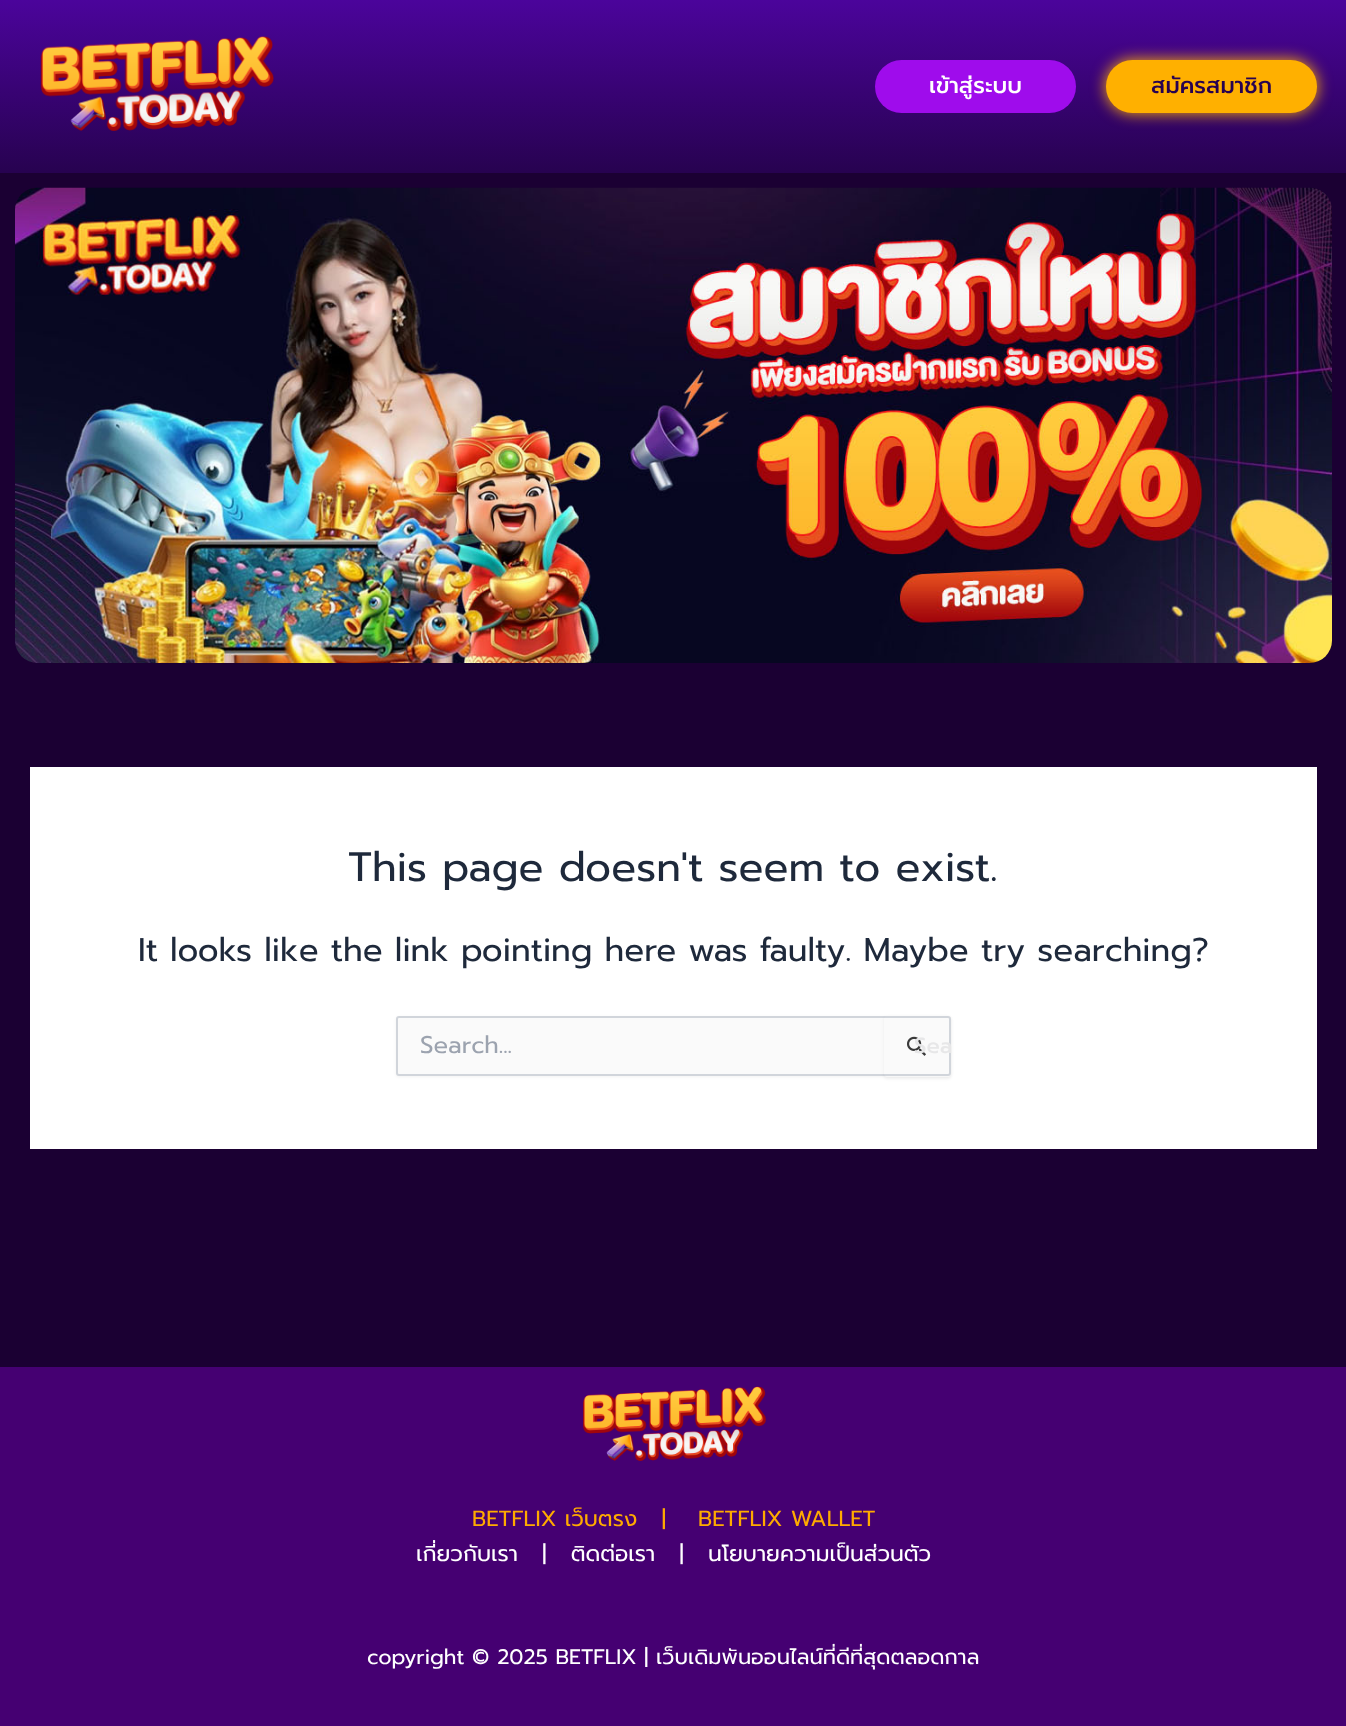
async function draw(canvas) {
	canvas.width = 1346;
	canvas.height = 1726;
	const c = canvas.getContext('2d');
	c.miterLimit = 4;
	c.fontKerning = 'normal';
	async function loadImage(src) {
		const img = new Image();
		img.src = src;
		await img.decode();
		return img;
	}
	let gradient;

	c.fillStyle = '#1b0033';
	c.fillRect(0, 0, 1346, 1726);
	gradient = c.createLinearGradient(674, 0, 674, 173);
	gradient.addColorStop(0, '#4b049b');
	gradient.addColorStop(1, '#270250');
	c.fillStyle = gradient;
	c.fillRect(0, 0, 1346, 173);
	c.drawImage(await loadImage('img1.png'), 40, 36, 235, 95);
	c.fillStyle = '#9f0cec';
	c.beginPath();
	c.roundRect(875, 60, 201, 53, 26.5);
	c.fill();
	c.font = '500 22.5px Prompt';
	c.fillStyle = '#fff';
	c.fillText('เข้าสู่ระบบ', 929, 93);
	c.fillStyle = '#ffb000';
	c.filter = 'blur(7.5px)';
	c.beginPath();
	c.roundRect(1106, 60, 211, 53, 26.5);
	c.fill();
	c.filter = 'none';
	c.beginPath();
	c.roundRect(1106, 60, 211, 53, 26.5);
	c.fill();
	c.fillStyle = '#270250';
	c.fillText('สมัครสมาชิก', 1151, 93);
	c.drawImage(await loadImage('img2.png'), 15, 187, 1317, 476);
	c.fillStyle = '#fff';
	c.fillRect(30, 767, 1287, 382);
	c.font = '41px Prompt';
	c.fillStyle = '#1e293b';
	c.fillText('This page doesn\'t seem to exist.', 348, 881);
	c.font = '32.8px Prompt';
	c.fillText('It looks like the link pointing here was faulty. Maybe try searching?', 138, 961);
	c.fillStyle = '#0000000d';
	c.filter = 'blur(1.5px)';
	c.beginPath();
	c.roundRect(396, 1017, 555, 60, 3);
	c.fill();
	c.filter = 'none';
	c.fillStyle = '#fafafa';
	c.beginPath();
	c.roundRect(397, 1017, 553, 58, 2);
	c.fill();
	c.strokeStyle = '#d1d5db';
	c.lineWidth = 2;
	c.stroke();
	c.font = '24px Prompt';
	c.fillStyle = '#9ca3af';
	c.fillText('Search...', 420, 1053);
	c.drawImage(await loadImage('img3.png'), 907, 1036, 19, 20);
	c.save();
	c.beginPath();
	c.moveTo(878, 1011);
	c.lineTo(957, 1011);
	c.lineTo(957, 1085);
	c.lineTo(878, 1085);
	c.closePath();
	c.moveTo(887, 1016);
	c.lineTo(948, 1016);
	c.bezierCurveTo(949.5, 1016, 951, 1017.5, 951, 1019);
	c.lineTo(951, 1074);
	c.bezierCurveTo(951, 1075.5, 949.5, 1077, 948, 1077);
	c.lineTo(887, 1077);
	c.bezierCurveTo(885.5, 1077, 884, 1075.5, 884, 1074);
	c.lineTo(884, 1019);
	c.bezierCurveTo(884, 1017.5, 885.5, 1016, 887, 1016);
	c.closePath();
	c.clip('evenodd');
	c.fillStyle = '#0000000d';
	c.filter = 'blur(1.5px)';
	c.beginPath();
	c.roundRect(884, 1017, 67, 62, 3);
	c.fill();
	c.filter = 'none';
	c.restore();
	c.font = '500 21.9px Prompt';
	c.fillStyle = '#e7e7e8';
	c.fillText('Sea', 914, 1053);
	c.fillStyle = '#450072';
	c.fillRect(0, 1367, 1346, 359);
	c.drawImage(await loadImage('img4.png'), 583, 1386, 184, 75);
	c.font = '21.9px Prompt';
	c.fillStyle = '#fa0';
	c.fillText('BETFLIX เว็บตรง   |', 472, 1526);
	c.fillText('BETFLIX WALLET', 698, 1526);
	c.fillStyle = '#fff';
	c.fillText('เกี่ยวกับเรา   |   ติดต่อเรา   |   นโยบายความเป็นส่วนตัว', 416, 1561);
	c.font = '21px Prompt';
	c.fillText('copyright © 2025 BETFLIX | เว็บเดิมพันออนไลน์ที่ดีที่สุดตลอดกาล', 367, 1664);
}

draw(document.querySelector('canvas'));
